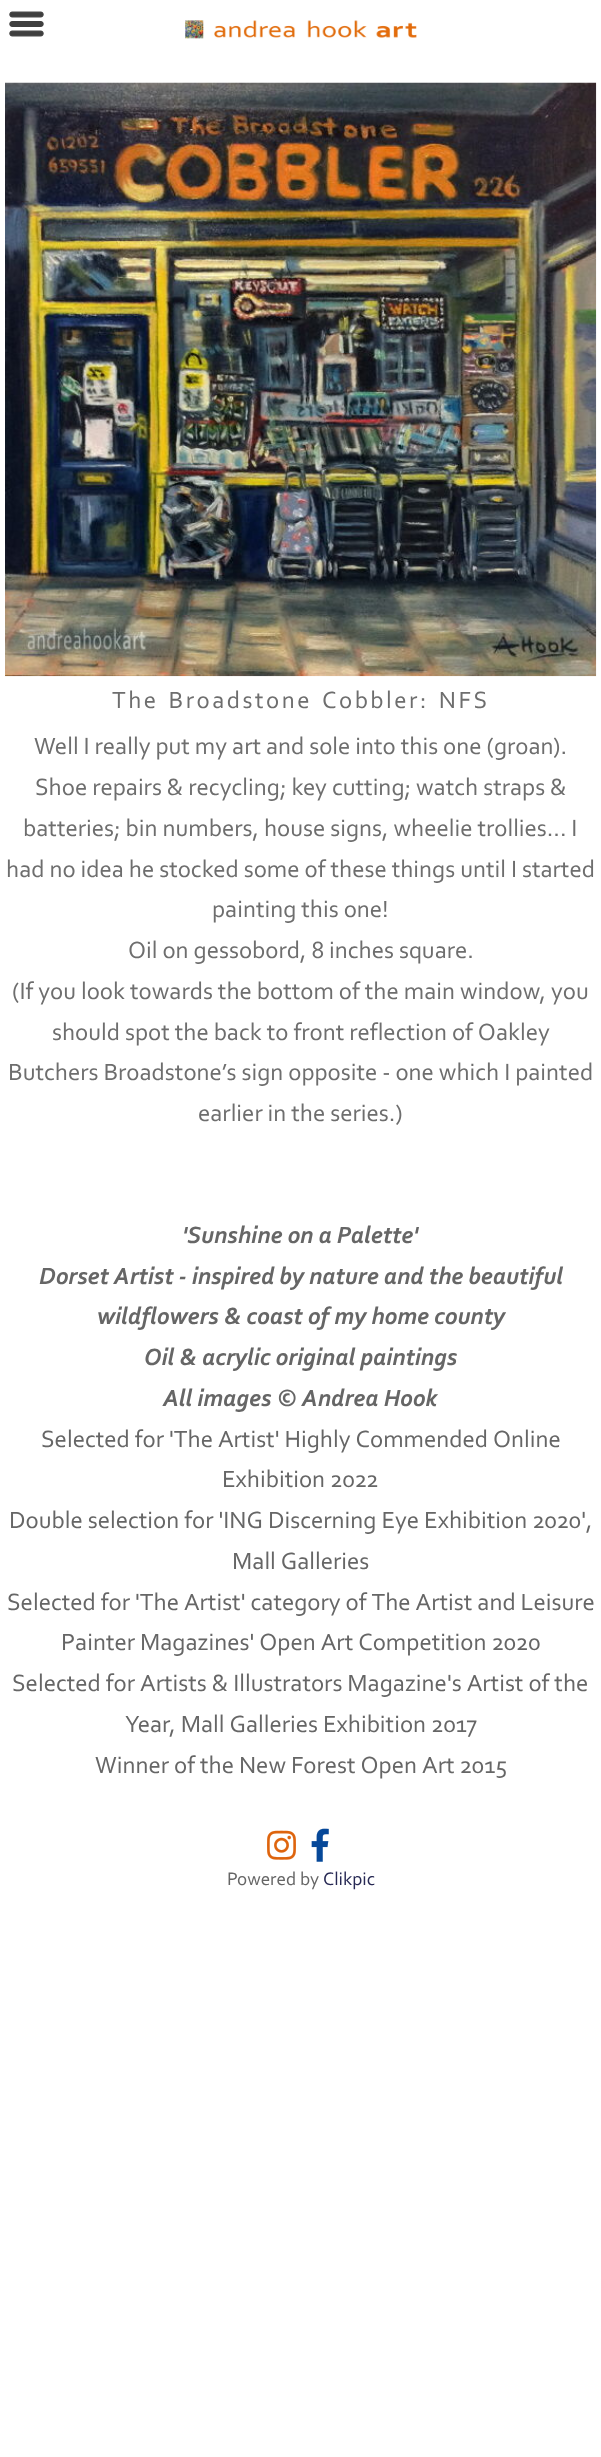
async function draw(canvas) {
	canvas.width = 601;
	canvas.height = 2457;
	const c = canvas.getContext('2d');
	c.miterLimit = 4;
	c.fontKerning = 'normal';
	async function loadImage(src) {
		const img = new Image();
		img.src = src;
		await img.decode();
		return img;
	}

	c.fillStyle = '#fff';
	c.fillRect(0, 0, 601, 2457);
	c.drawImage(await loadImage('img1.png'), 9, 11, 35, 26);
	c.drawImage(await loadImage('img2.png'), 185, 20, 232, 19);
	c.drawImage(await loadImage('img3.png'), 5, 82, 592, 595);
	c.letterSpacing = '2.5px';
	c.wordSpacing = '2.5px';
	c.font = '24.7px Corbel';
	c.fillStyle = '#6e6e6e';
	c.fillText('The Broadstone Cobbler: NFS', 112, 708);
	c.letterSpacing = '0px';
	c.wordSpacing = '0px';
	for (const [text, x, y] of [
		['Well I really put my art and sole into this one (groan).', 34, 754],
		['Shoe repairs & recycling; key cutting; watch straps &', 35, 795],
		['batteries; bin numbers, house signs, wheelie trollies... I', 23, 836],
		['had no idea he stocked some of these things until I started', 6, 877],
		['painting this one!', 212, 917],
		['Oil on gessobord, 8 inches square.', 128, 958],
		['(If you look towards the bottom of the main window, you', 12, 999],
		['should spot the back to front reflection of Oakley', 52, 1040],
		['Butchers Broadstone’s sign opposite - one which I painted', 8, 1080],
		['earlier in the series.)', 198, 1121],
	]) {
		c.fillText(text, x, y);
	}
	c.font = 'italic bold 24.7px Corbel';
	c.fillStyle = '#666';
	for (const [text, x, y] of [
		['\'Sunshine on a Palette\'', 182, 1243],
		['Dorset Artist - inspired by nature and the beautiful', 39, 1284],
		['wildflowers & coast of my home county', 97, 1324],
		['Oil & acrylic original paintings', 144, 1365],
		['All images © Andrea Hook', 163, 1406],
	]) {
		c.fillText(text, x, y);
	}
	c.font = '24.7px Corbel';
	for (const [text, x, y] of [
		['Selected for \'The Artist\' Highly Commended Online', 41, 1447],
		['Exhibition 2022', 222, 1487],
		['Double selection for \'ING Discerning Eye Exhibition 2020\',', 9, 1528],
		['Mall Galleries', 232, 1569],
		['Selected for \'The Artist\' category of The Artist and Leisure', 7, 1610],
		['Painter Magazines\' Open Art Competition 2020', 61, 1650],
		['Selected for Artists & Illustrators Magazine\'s Artist of the', 12, 1691],
		['Year, Mall Galleries Exhibition 2017', 125, 1732],
		['Winner of the New Forest Open Art 2015', 95, 1773],
	]) {
		c.fillText(text, x, y);
	}
	c.drawImage(await loadImage('img4.png'), 267, 1830, 29, 30);
	c.drawImage(await loadImage('img5.png'), 311, 1828, 18, 34);
	c.font = '19px Corbel';
	c.fillText('Powered by', 227, 1885);
	c.fillStyle = '#272954';
	c.fillText('Clikpic', 323, 1885);
}

draw(document.querySelector('canvas'));
